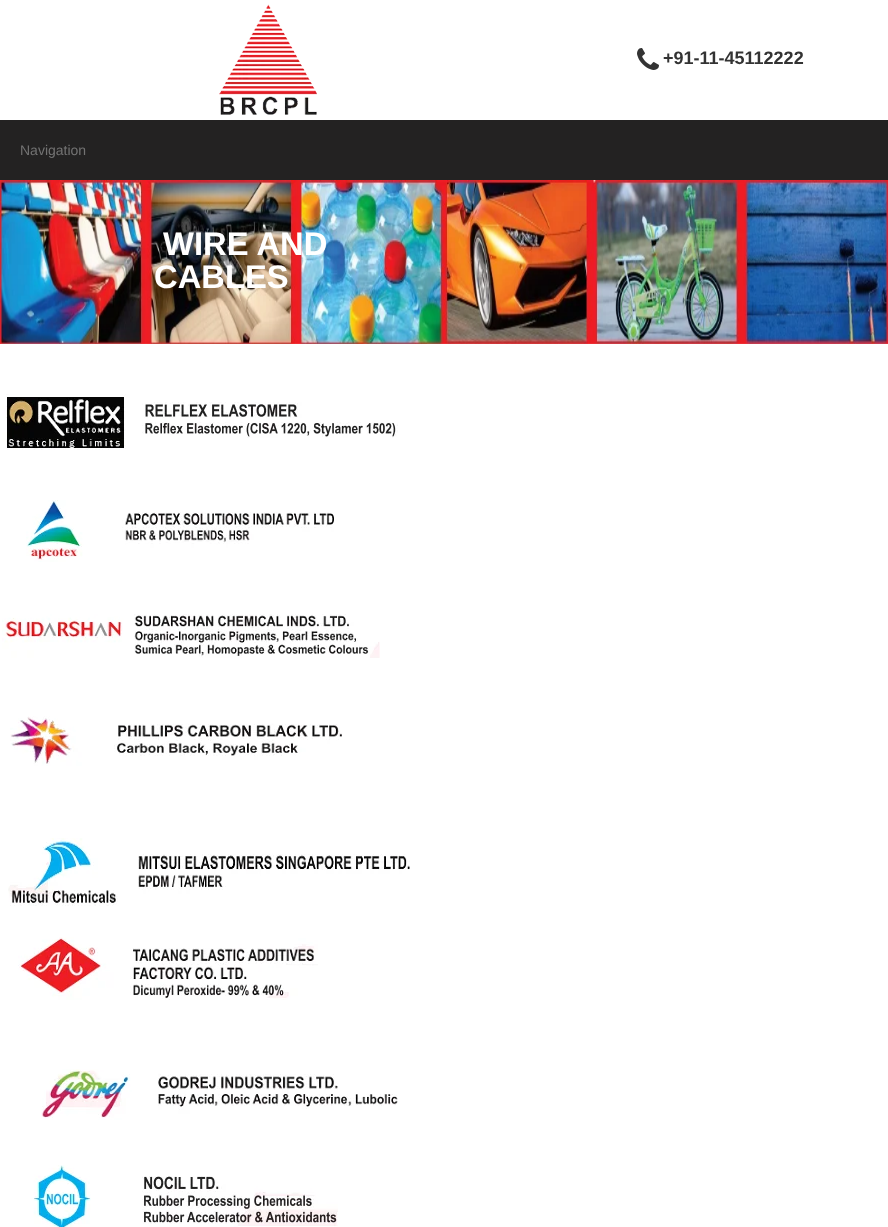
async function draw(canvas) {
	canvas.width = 888;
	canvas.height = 1227;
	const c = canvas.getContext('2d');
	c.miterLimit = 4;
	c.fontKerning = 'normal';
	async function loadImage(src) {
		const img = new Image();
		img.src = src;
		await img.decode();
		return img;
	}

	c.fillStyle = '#fff';
	c.fillRect(0, 0, 888, 1227);
	c.drawImage(await loadImage('img1.png'), 219, 4, 98, 111);
	c.drawImage(await loadImage('img2.png'), 637, 48, 22, 22);
	c.font = 'bold 18px Liberation Sans';
	c.fillStyle = '#333';
	c.fillText('+91-11-45112222', 663, 64);
	c.fillStyle = '#232222';
	c.fillRect(0, 120, 888, 60);
	c.font = '14px Liberation Sans';
	c.fillStyle = '#737373';
	c.fillText('Navigation', 20, 155);
	c.drawImage(await loadImage('img3.png'), 0, 180, 888, 164);
	c.font = 'bold 32.75px Liberation Sans';
	c.fillStyle = '#fff';
	c.fillText('WIRE AND', 163, 255);
	c.fillText('CABLES', 154, 288);
	c.drawImage(await loadImage('img4.png'), 2, 394, 396, 56);
	c.drawImage(await loadImage('img5.png'), 26, 500, 308, 62);
	c.drawImage(await loadImage('img6.png'), 2, 614, 378, 44);
	c.drawImage(await loadImage('img7.png'), 10, 716, 332, 50);
	c.drawImage(await loadImage('img8.png'), 8, 838, 402, 68);
	c.drawImage(await loadImage('img9.png'), 18, 937, 300, 63);
	c.drawImage(await loadImage('img10.png'), 41, 1069, 357, 51);
	c.drawImage(await loadImage('img11.png'), 33, 1165, 305, 62);
}

draw(document.querySelector('canvas'));
